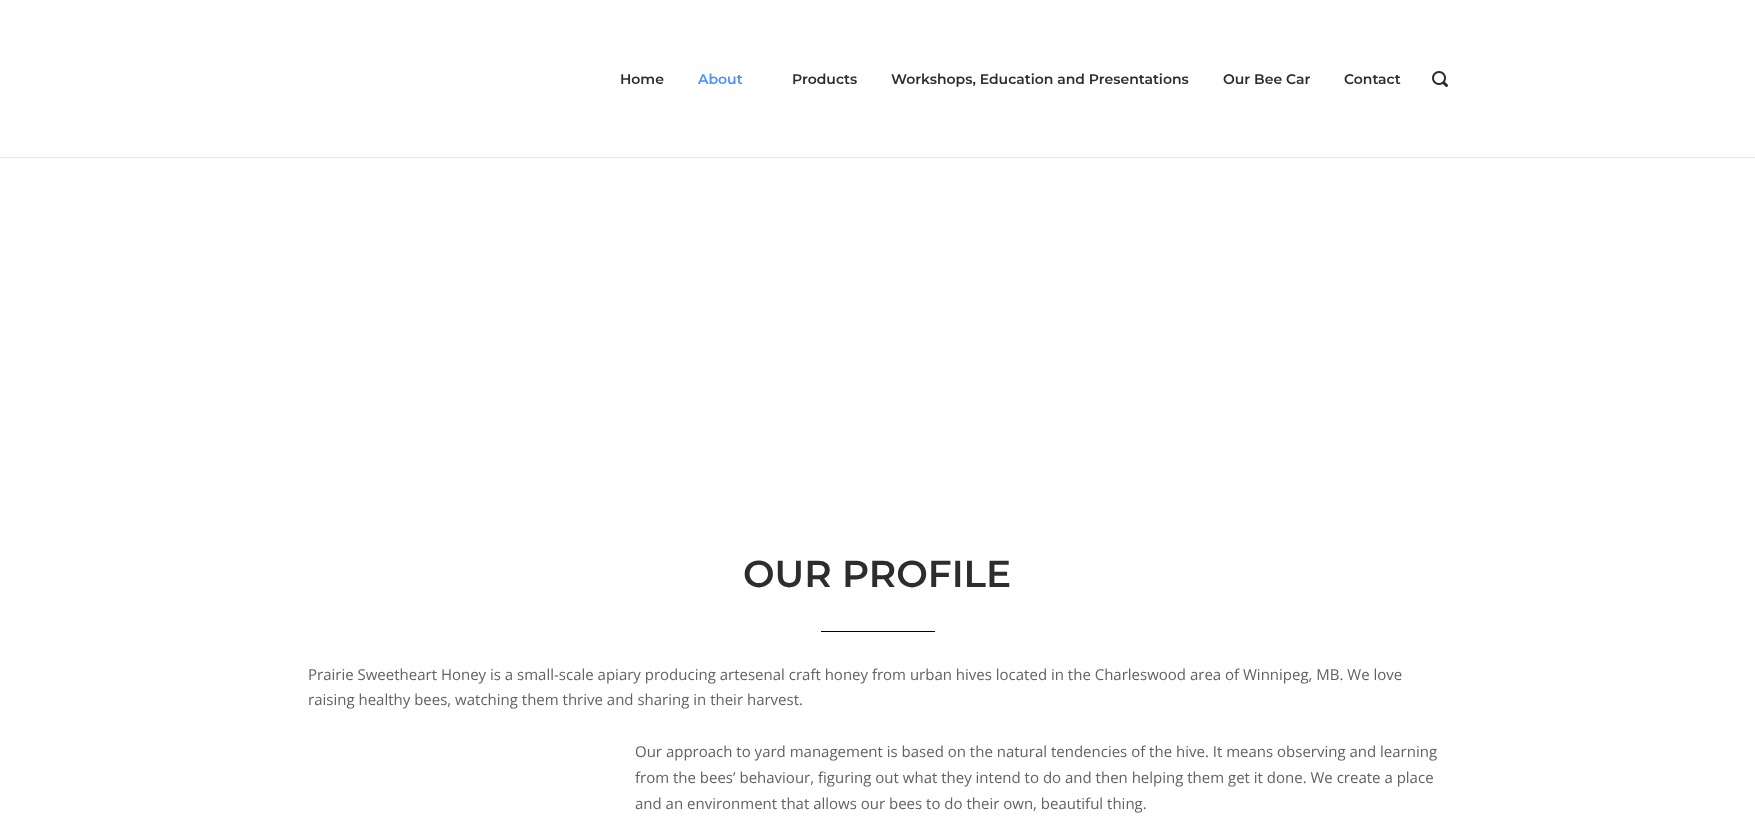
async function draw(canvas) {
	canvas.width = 1755;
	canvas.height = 819;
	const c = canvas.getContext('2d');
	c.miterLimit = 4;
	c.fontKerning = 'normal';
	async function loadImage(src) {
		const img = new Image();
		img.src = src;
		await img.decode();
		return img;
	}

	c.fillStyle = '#fff';
	c.fillRect(0, 0, 1755, 819);
	c.fillStyle = '#e6e6e6';
	c.fillRect(0, 157, 1755, 1);
	c.font = '600 14px Montserrat';
	c.fillStyle = '#2d2d2d';
	c.fillText('Home', 620, 84);
	c.fillStyle = '#4d8ffb';
	c.fillText('About', 698, 84);
	c.fillStyle = '#2d2d2d';
	for (const [text, x, y] of [
		['Products', 792, 84],
		['Workshops, Education and Presentations', 891, 84],
		['Our Bee Car', 1223, 84],
		['Contact', 1344, 84],
	]) {
		c.fillText(text, x, y);
	}
	c.drawImage(await loadImage('img1.png'), 1432, 71, 16, 16);
	c.font = '600 37.5px Montserrat';
	c.fillText('OUR PROFILE', 743, 587);
	c.fillStyle = '#000';
	c.fillRect(821, 631, 114, 1);
	c.font = '15px Open Sans';
	c.fillStyle = '#626262';
	for (const [text, x, y] of [
		['Prairie Sweetheart Honey is a small-scale apiary producing artesenal craft honey from urban hives located in the Charleswood area of Winnipeg, MB. We love', 308, 680],
		['raising healthy bees, watching them thrive and sharing in their harvest.', 308, 705],
		['Our approach to yard management is based on the natural tendencies of the hive. It means observing and learning', 635, 757],
		['from the bees’ behaviour, figuring out what they intend to do and then helping them get it done. We create a place', 635, 783],
		['and an environment that allows our bees to do their own, beautiful thing.', 635, 809],
	]) {
		c.fillText(text, x, y);
	}
}

draw(document.querySelector('canvas'));
